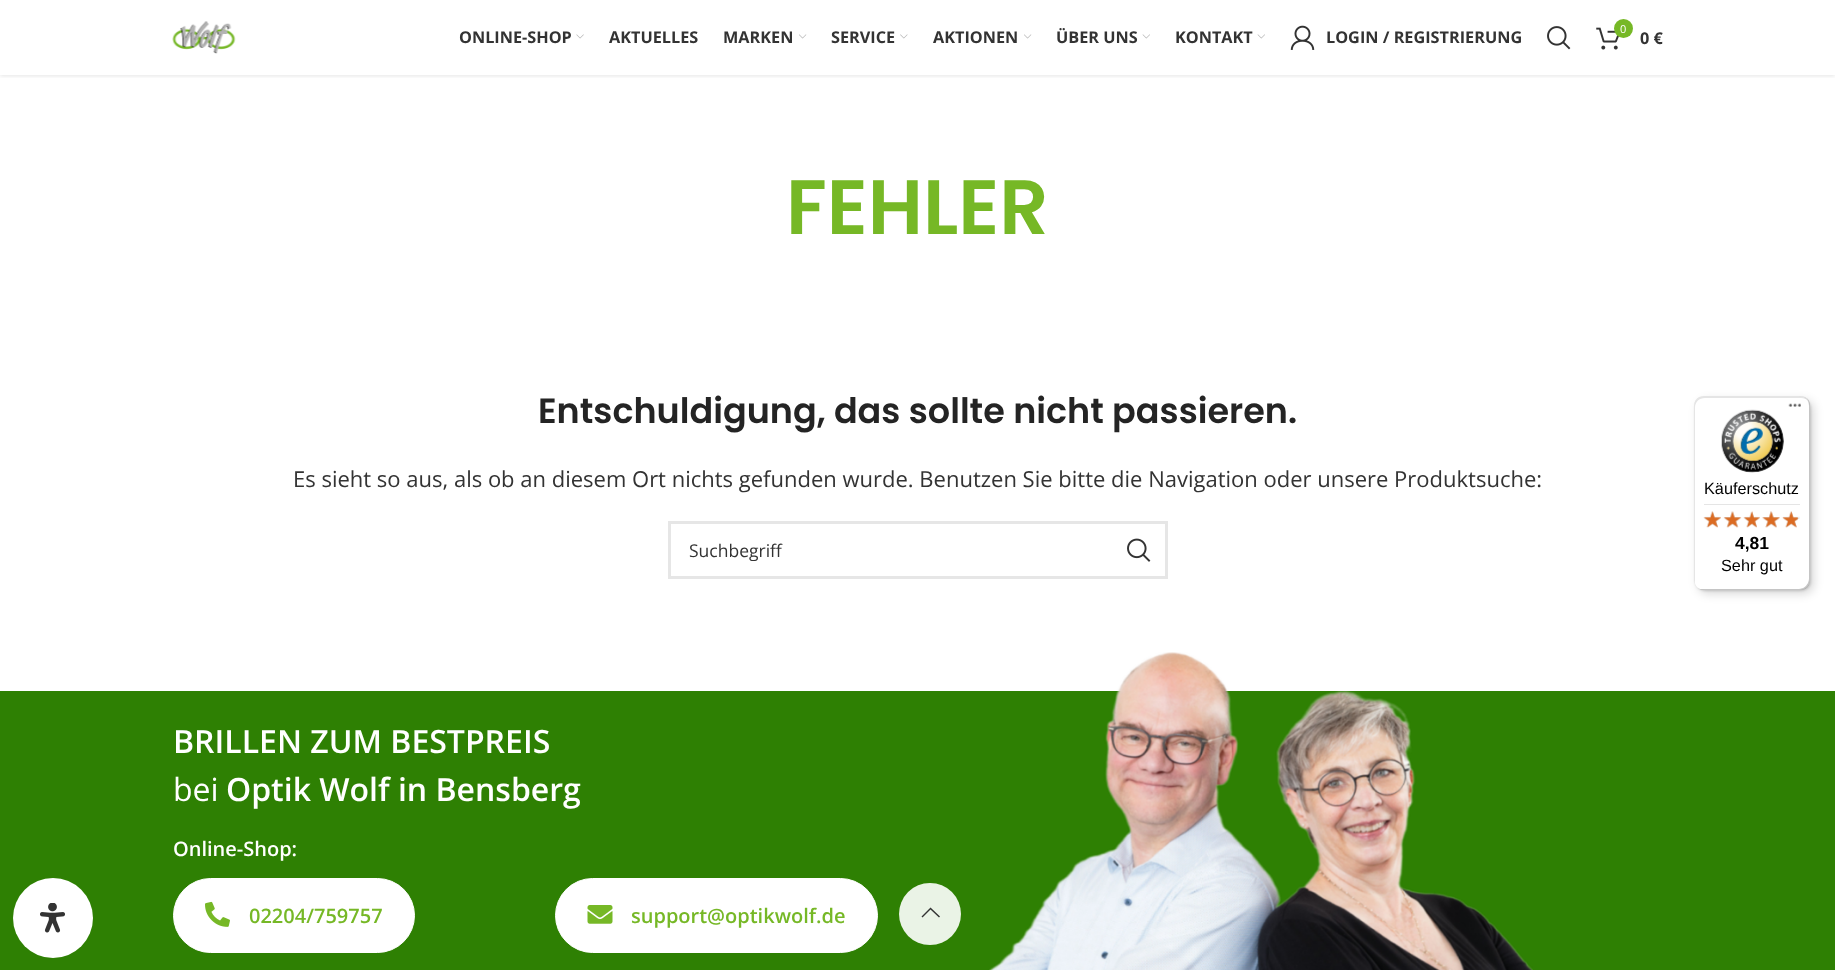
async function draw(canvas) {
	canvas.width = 1835;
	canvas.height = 970;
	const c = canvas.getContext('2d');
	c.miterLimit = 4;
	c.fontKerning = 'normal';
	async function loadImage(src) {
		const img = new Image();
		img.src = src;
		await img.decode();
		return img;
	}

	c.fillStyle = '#fff';
	c.fillRect(0, 0, 1835, 970);
	c.save();
	c.beginPath();
	c.rect(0, 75, 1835, 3);
	c.clip();
	c.fillStyle = '#0000001a';
	c.filter = 'blur(2px)';
	c.beginPath();
	c.rect(0, 1, 1835, 75);
	c.fill();
	c.filter = 'none';
	c.restore();
	c.drawImage(await loadImage('img1.png'), 172, 21, 64, 33);
	c.font = 'bold 16.25px Open Sans';
	c.fillStyle = '#333';
	c.fillText('ONLINE-SHOP', 459, 43);
	c.drawImage(await loadImage('img2.png'), 576, 34, 8, 5);
	c.fillText('AKTUELLES', 609, 43);
	c.fillText('MARKEN', 723, 43);
	c.drawImage(await loadImage('img3.png'), 799, 34, 8, 5);
	c.fillText('SERVICE', 831, 43);
	c.drawImage(await loadImage('img4.png'), 900, 34, 8, 5);
	c.fillText('AKTIONEN', 933, 43);
	c.drawImage(await loadImage('img3.png'), 1024, 34, 8, 5);
	c.fillText('ÜBER UNS', 1056, 43);
	c.drawImage(await loadImage('img5.png'), 1142, 34, 8, 5);
	c.fillText('KONTAKT', 1175, 43);
	c.drawImage(await loadImage('img5.png'), 1257, 34, 8, 5);
	c.drawImage(await loadImage('img6.png'), 1290, 25, 25, 25);
	c.fillText('LOGIN / REGISTRIERUNG', 1326, 43);
	c.drawImage(await loadImage('img7.png'), 1547, 26, 24, 24);
	c.drawImage(await loadImage('img8.png'), 1596, 27, 23, 23);
	c.fillStyle = '#76b826';
	c.beginPath();
	c.arc(1623.5, 28.5, 9.5, 0, 2 * Math.PI);
	c.fill();
	c.font = '11px Open Sans';
	c.fillStyle = '#fff';
	c.fillText('0', 1620, 33);
	c.font = 'bold 16.25px Open Sans';
	c.fillStyle = '#333';
	c.fillText('0 €', 1640, 44);
	c.font = '600 77px Poppins';
	c.fillStyle = '#76b826';
	c.fillText('FEHLER', 786, 234);
	c.font = '600 35px Poppins';
	c.fillStyle = '#242424';
	c.fillText('Entschuldigung, das sollte nicht passieren.', 538, 423);
	c.font = '22px Open Sans';
	c.fillStyle = '#333';
	c.fillText('Es sieht so aus, als ob an diesem Ort nichts gefunden wurde. Benutzen Sie bitte die Navigation oder unsere Produktsuche:', 293, 487);
	c.strokeStyle = '#e6e6e6';
	c.lineWidth = 3;
	c.strokeRect(669.5, 522.5, 497, 55);
	c.save();
	c.beginPath();
	c.rect(689, 538, 419, 23);
	c.clip();
	c.font = '17.5px Open Sans';
	c.fillText('Suchbegriff', 689, 557);
	c.restore();
	c.drawImage(await loadImage('img9.png'), 1127, 538, 24, 24);
	c.fillStyle = '#2e8003';
	c.fillRect(0, 691, 1835, 279);
	c.font = '600 32px Open Sans';
	c.fillStyle = '#fff';
	c.fillText('BRILLEN ZUM BESTPREIS', 173, 753);
	c.font = '32px Open Sans';
	c.fillText('bei', 173, 801);
	c.font = '600 32px Open Sans';
	c.fillText('Optik Wolf in Bensberg', 226, 801);
	c.font = '600 20px Open Sans';
	c.fillText('Online-Shop:', 173, 856);
	c.beginPath();
	c.roundRect(173.5, 878.5, 241, 74, 37);
	c.fill();
	c.strokeStyle = '#fff';
	c.lineWidth = 1;
	c.stroke();
	c.drawImage(await loadImage('img10.png'), 205, 901, 25, 26);
	c.fillStyle = '#76b826';
	c.fillText('02204/759757', 249, 923);
	c.fillStyle = '#fff';
	c.beginPath();
	c.roundRect(555.5, 878.5, 322, 74, 37);
	c.fill();
	c.stroke();
	c.drawImage(await loadImage('img11.png'), 587, 905, 26, 19);
	c.fillStyle = '#76b826';
	c.fillText('support@optikwolf.de', 631, 923);
	c.drawImage(await loadImage('img12.png'), 989, 652, 544, 318);
	c.fillStyle = '#00000026';
	c.filter = 'blur(5px)';
	c.beginPath();
	c.roundRect(1698, 400, 116, 194, 10);
	c.fill();
	c.filter = 'none';
	c.filter = 'blur(1px)';
	c.beginPath();
	c.roundRect(1695, 398, 116, 193, 10);
	c.fill();
	c.filter = 'none';
	c.fillStyle = '#fff';
	c.beginPath();
	c.roundRect(1694, 396, 116, 194, 10);
	c.fill();
	c.fillStyle = '#e5e5e5';
	c.beginPath();
	c.moveTo(1705, 398);
	c.lineTo(1801, 398);
	c.bezierCurveTo(1804, 398, 1807, 399, 1809, 402);
	c.bezierCurveTo(1807, 398, 1804, 396, 1800, 396);
	c.lineTo(1704, 396);
	c.bezierCurveTo(1698, 396, 1694, 400, 1694, 406);
	c.lineTo(1694, 580);
	c.bezierCurveTo(1694, 582, 1695, 585, 1696, 586);
	c.bezierCurveTo(1695, 585, 1695, 583, 1695, 581);
	c.lineTo(1695, 408);
	c.bezierCurveTo(1695, 402, 1699, 398, 1705, 398);
	c.closePath();
	c.fill();
	c.fillStyle = '#00000033';
	c.beginPath();
	c.moveTo(1698, 588);
	c.bezierCurveTo(1700, 589, 1702, 590, 1704, 590);
	c.lineTo(1800, 590);
	c.bezierCurveTo(1806, 590, 1810, 586, 1810, 580);
	c.lineTo(1810, 406);
	c.bezierCurveTo(1810, 403, 1809, 400, 1807, 398);
	c.bezierCurveTo(1808, 400, 1809, 402, 1809, 405);
	c.lineTo(1809, 579);
	c.bezierCurveTo(1809, 584, 1804, 589, 1799, 589);
	c.lineTo(1702, 589);
	c.bezierCurveTo(1701, 589, 1699, 589, 1698, 588);
	c.closePath();
	c.fill();
	c.fillStyle = '#32323233';
	c.beginPath();
	c.moveTo(1698, 588);
	c.bezierCurveTo(1699, 589, 1702, 590, 1704, 590);
	c.lineTo(1800, 590);
	c.bezierCurveTo(1806, 590, 1810, 586, 1810, 580);
	c.lineTo(1810, 406);
	c.bezierCurveTo(1810, 400, 1806, 396, 1800, 396);
	c.lineTo(1799, 396);
	c.bezierCurveTo(1805, 396, 1809, 400, 1809, 406);
	c.lineTo(1809, 579);
	c.bezierCurveTo(1809, 585, 1805, 589, 1799, 589);
	c.lineTo(1703, 589);
	c.bezierCurveTo(1701, 589, 1699, 589, 1698, 588);
	c.closePath();
	c.fill();
	c.fillStyle = '#ffffff4d';
	c.beginPath();
	c.moveTo(1696, 586);
	c.bezierCurveTo(1698, 589, 1701, 590, 1704, 590);
	c.lineTo(1800, 590);
	c.bezierCurveTo(1806, 590, 1810, 586, 1810, 580);
	c.lineTo(1810, 406);
	c.bezierCurveTo(1810, 400, 1806, 396, 1800, 396);
	c.lineTo(1799, 396);
	c.bezierCurveTo(1805, 396, 1809, 400, 1809, 406);
	c.lineTo(1809, 579);
	c.bezierCurveTo(1809, 585, 1805, 589, 1799, 589);
	c.lineTo(1703, 589);
	c.bezierCurveTo(1701, 589, 1698, 588, 1696, 586);
	c.closePath();
	c.fill();
	c.drawImage(await loadImage('img13.png'), 1788, 403, 13, 4);
	c.drawImage(await loadImage('img14.png'), 1721, 409, 63, 64);
	c.font = '16.25px Liberation Sans';
	c.fillStyle = '#000';
	c.fillText('Käuferschutz', 1704, 494);
	c.fillStyle = '#e5e5e5';
	c.fillRect(1704, 504, 96, 1);
	c.drawImage(await loadImage('img20.png'), 1704, 511, 17, 16);
	c.drawImage(await loadImage('img15.png'), 1703, 511, 18, 17);
	c.drawImage(await loadImage('img21.png'), 1724, 511, 17, 17);
	c.drawImage(await loadImage('img16.png'), 1723, 511, 19, 17);
	c.drawImage(await loadImage('img22.png'), 1744, 512, 16, 15);
	c.drawImage(await loadImage('img17.png'), 1743, 511, 17, 17);
	c.drawImage(await loadImage('img23.png'), 1762, 511, 18, 17);
	c.drawImage(await loadImage('img18.png'), 1762, 511, 18, 17);
	c.drawImage(await loadImage('img24.png'), 1783, 511, 17, 17);
	c.drawImage(await loadImage('img19.png'), 1782, 511, 16, 17);
	c.font = 'bold 17.5px Liberation Sans';
	c.fillStyle = '#000';
	c.fillText('4,81', 1735, 549);
	c.font = '16.25px Liberation Sans';
	c.fillText('Sehr gut', 1721, 571);
	c.fillStyle = '#fff';
	c.beginPath();
	c.arc(53, 918, 40, 0, 2 * Math.PI);
	c.fill();
	c.drawImage(await loadImage('img25.png'), 40, 903, 25, 30);
	c.fillStyle = '#ffffffe6';
	c.beginPath();
	c.arc(930, 914, 31, 0, 2 * Math.PI);
	c.fill();
	c.fillStyle = '#333';
	c.beginPath();
	c.moveTo(939, 917.5);
	c.lineTo(940, 916.5);
	c.lineTo(930.5, 907.5);
	c.lineTo(921.5, 916.5);
	c.lineTo(922.5, 917.5);
	c.lineTo(930.5, 909.5);
	c.closePath();
	c.fill();
}

draw(document.querySelector('canvas'));
